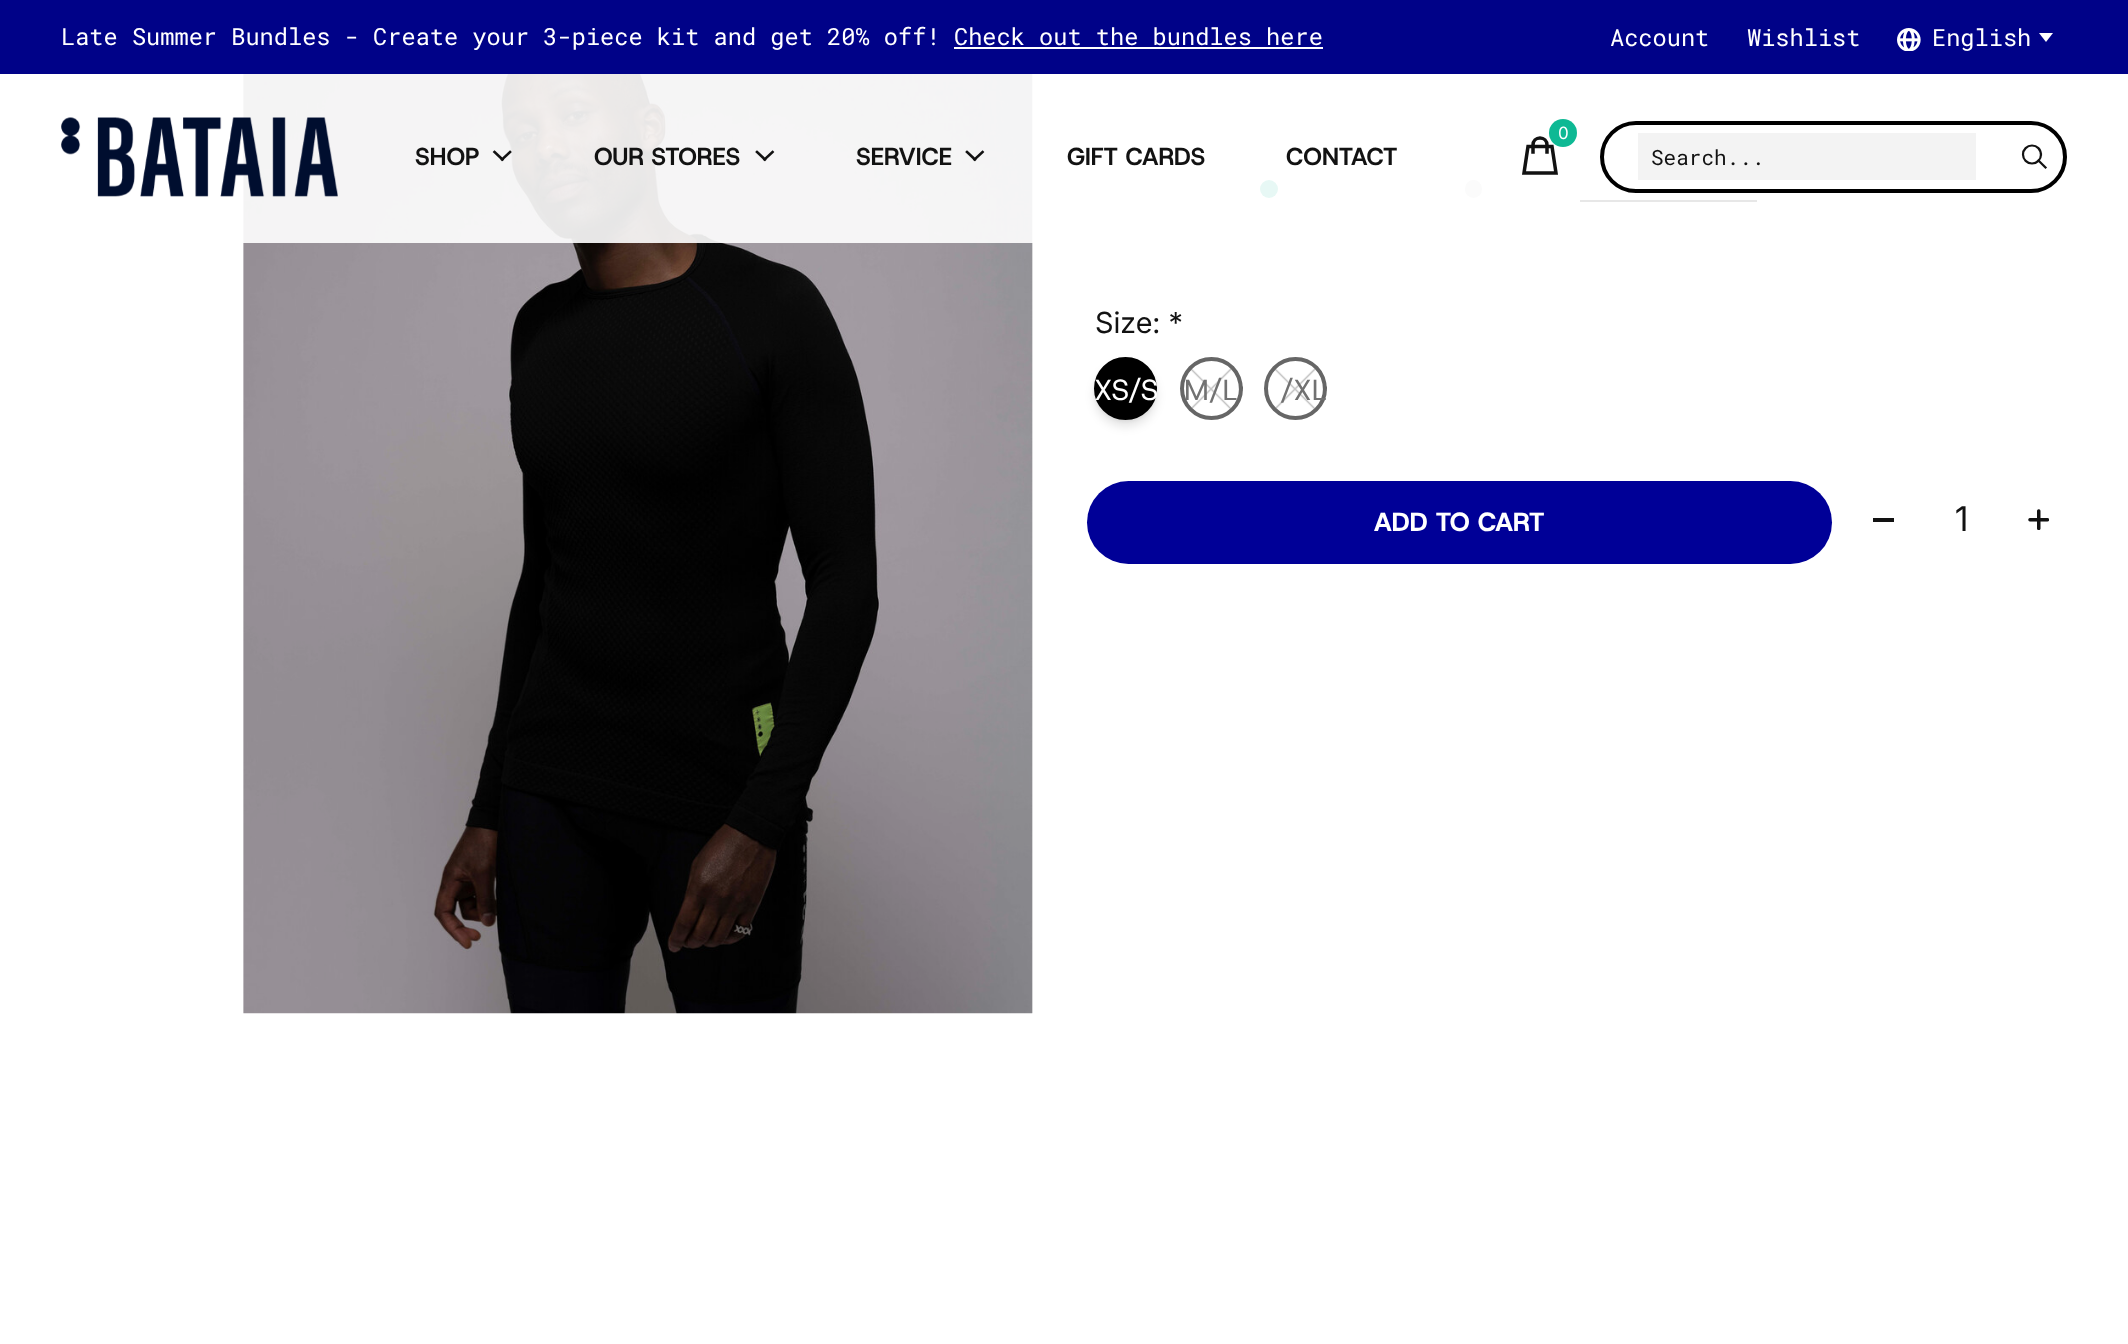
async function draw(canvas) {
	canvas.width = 2128;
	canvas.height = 1344;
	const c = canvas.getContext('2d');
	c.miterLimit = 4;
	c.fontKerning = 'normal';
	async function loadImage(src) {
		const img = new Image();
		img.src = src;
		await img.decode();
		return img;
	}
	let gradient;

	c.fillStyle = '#fff';
	c.fillRect(0, 0, 2128, 1344);
	c.fillStyle = '#000288';
	c.fillRect(0, 0, 2128, 74);
	c.font = '23.65px Roboto Mono';
	c.fillStyle = '#fff';
	c.fillText('Late Summer Bundles - Create your 3-piece kit and get 20% off!', 61, 45);
	c.fillText('Check out the bundles here', 954, 45);
	c.fillRect(954, 47, 369, 2);
	c.fillText('Account', 1610, 46);
	c.fillText('Wishlist', 1747, 46);
	c.drawImage(await loadImage('img1.png'), 1897, 28, 24, 23);
	c.fillText('English', 1932, 46);
	c.beginPath();
	c.moveTo(2046, 42);
	c.lineTo(2053, 33);
	c.lineTo(2039, 33);
	c.closePath();
	c.fill();
	c.fillStyle = '#f2f2f2';
	c.fillRect(243, 74, 790, 939);
	c.drawImage(await loadImage('img3.png'), 243, 74, 790, 940);
	c.fillStyle = '#0eb994';
	c.beginPath();
	c.arc(1269, 189, 9, 0, 2 * Math.PI);
	c.fill();
	c.fillStyle = '#d0d0d0';
	c.beginPath();
	c.roundRect(1465, 180, 17, 18, 8.5);
	c.fill();
	c.fillStyle = '#121212';
	c.fillRect(1580, 200, 177, 2);
	c.fillStyle = '#ffffffe6';
	c.fillRect(243, 74, 1514, 169);
	c.drawImage(await loadImage('img2.png'), 61, 117, 277, 80);
	c.font = 'bold 24.5px Host Grotesk';
	c.fillStyle = '#121212';
	c.fillText('SHOP', 415, 165);
	c.beginPath();
	c.moveTo(494.5, 152);
	c.lineTo(502.5, 159.5);
	c.moveTo(510, 152);
	c.lineTo(502, 159.5);
	c.strokeStyle = '#121212';
	c.lineWidth = 2.6;
	c.lineCap = 'square';
	c.stroke();
	c.fillText('OUR STORES', 594, 165);
	c.beginPath();
	c.moveTo(757, 152);
	c.lineTo(765, 159.5);
	c.moveTo(772.5, 152);
	c.lineTo(764.5, 159.5);
	c.stroke();
	c.fillText('SERVICE', 856, 165);
	c.beginPath();
	c.moveTo(967, 152);
	c.lineTo(975, 159.5);
	c.moveTo(982.5, 152);
	c.lineTo(974.5, 159.5);
	c.stroke();
	c.fillText('GIFT CARDS', 1067, 165);
	c.fillText('CONTACT', 1286, 165);
	c.beginPath();
	c.moveTo(1556, 173);
	c.lineTo(1524, 173);
	c.lineTo(1528, 146.5);
	c.lineTo(1552, 146.5);
	c.closePath();
	c.moveTo(1533, 152);
	c.lineTo(1533, 145);
	c.bezierCurveTo(1533, 141, 1536, 138, 1540, 138);
	c.bezierCurveTo(1544, 138, 1547, 141, 1547, 145);
	c.lineTo(1547, 152);
	c.lineWidth = 3.5;
	c.stroke();
	c.fillStyle = '#0eb994';
	c.beginPath();
	c.arc(1563, 133, 14, 0, 2 * Math.PI);
	c.fill();
	c.font = '17px "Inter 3"';
	c.fillStyle = '#fff';
	c.fillText('0', 1558, 139);
	c.beginPath();
	c.roundRect(1602, 123, 463, 68, 34);
	c.strokeStyle = '#000';
	c.lineWidth = 4;
	c.stroke();
	c.fillStyle = '#1212120d';
	c.fillRect(1638, 133, 338, 47);
	c.font = '21px Roboto Mono';
	c.fillStyle = '#121212';
	c.fillText('Search...', 1651, 165);
	c.beginPath();
	c.moveTo(2045.5, 167.5);
	c.lineTo(2038.5, 160.5);
	c.strokeStyle = '#121212';
	c.lineWidth = 2.2;
	c.stroke();
	c.beginPath();
	c.arc(2032, 154.5, 9, 0, 2 * Math.PI);
	c.stroke();
	c.font = '29px Inter';
	c.fillText('Size: *', 1095, 333);
	c.fillStyle = '#0000001a';
	c.filter = 'blur(5px)';
	c.beginPath();
	c.roundRect(1094, 364, 63, 63, 31.5);
	c.fill();
	c.filter = 'none';
	c.fillStyle = '#0000000d';
	c.filter = 'blur(1.5px)';
	c.beginPath();
	c.roundRect(1094, 359, 63, 63, 31.5);
	c.fill();
	c.filter = 'none';
	c.fillStyle = '#000';
	c.beginPath();
	c.arc(1125.5, 388.5, 29.5, 0, 2 * Math.PI);
	c.fill();
	c.strokeStyle = '#000';
	c.lineWidth = 4;
	c.stroke();
	c.font = '29px Host Grotesk';
	c.fillStyle = '#fff';
	c.fillText('XS/S', 1094, 400);
	c.save();
	c.beginPath();
	c.roundRect(1180, 357, 63, 63, 31.5);
	c.clip();
	gradient = c.createLinearGradient(1183, 417, 1239, 361);
	gradient.addColorStop(0, '#fff');
	gradient.addColorStop(0.48, '#fff');
	gradient.addColorStop(0.5, '#c6c6c6');
	gradient.addColorStop(0.52, '#fff');
	gradient.addColorStop(1, '#fff');
	c.fillStyle = gradient;
	c.fillRect(1183, 361, 56, 56);
	gradient = c.createLinearGradient(1239, 417, 1183, 361);
	gradient.addColorStop(0, '#66666600');
	gradient.addColorStop(0.48, '#c6c6c600');
	gradient.addColorStop(0.5, '#c6c6c6');
	gradient.addColorStop(0.52, '#c6c6c600');
	gradient.addColorStop(1, '#66666600');
	c.fillStyle = gradient;
	c.fillRect(1188, 365, 47, 47);
	c.restore();
	c.beginPath();
	c.arc(1211.5, 388.5, 29.5, 0, 2 * Math.PI);
	c.strokeStyle = '#666';
	c.stroke();
	c.fillStyle = '#717171';
	c.fillText('M/L', 1184, 400);
	c.save();
	c.beginPath();
	c.roundRect(1264, 357, 63, 63, 31.5);
	c.clip();
	gradient = c.createLinearGradient(1267, 417, 1323, 361);
	gradient.addColorStop(0, '#fff');
	gradient.addColorStop(0.48, '#fff');
	gradient.addColorStop(0.5, '#c6c6c6');
	gradient.addColorStop(0.52, '#fff');
	gradient.addColorStop(1, '#fff');
	c.fillStyle = gradient;
	c.fillRect(1267, 361, 56, 56);
	gradient = c.createLinearGradient(1323, 417, 1267, 361);
	gradient.addColorStop(0, '#66666600');
	gradient.addColorStop(0.48, '#c6c6c600');
	gradient.addColorStop(0.5, '#c6c6c6');
	gradient.addColorStop(0.52, '#c6c6c600');
	gradient.addColorStop(1, '#66666600');
	c.fillStyle = gradient;
	c.fillRect(1272, 365, 47, 47);
	c.restore();
	c.beginPath();
	c.arc(1295.5, 388.5, 29.5, 0, 2 * Math.PI);
	c.stroke();
	c.fillText('/XL', 1280, 400);
	c.fillStyle = '#000097';
	c.beginPath();
	c.roundRect(1087, 481, 745, 83, 41.5);
	c.fill();
	c.font = '800 26.25px Host Grotesk';
	c.fillStyle = '#fff';
	c.fillText('ADD TO CART', 1374, 531);
	c.fillStyle = '#121212';
	c.fillRect(1873, 518, 21, 4);
	c.font = '34px "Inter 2"';
	c.fillText('1', 1955, 531);
	c.drawImage(await loadImage('img4.png'), 2028, 509, 21, 21);
}

draw(document.querySelector('canvas'));
